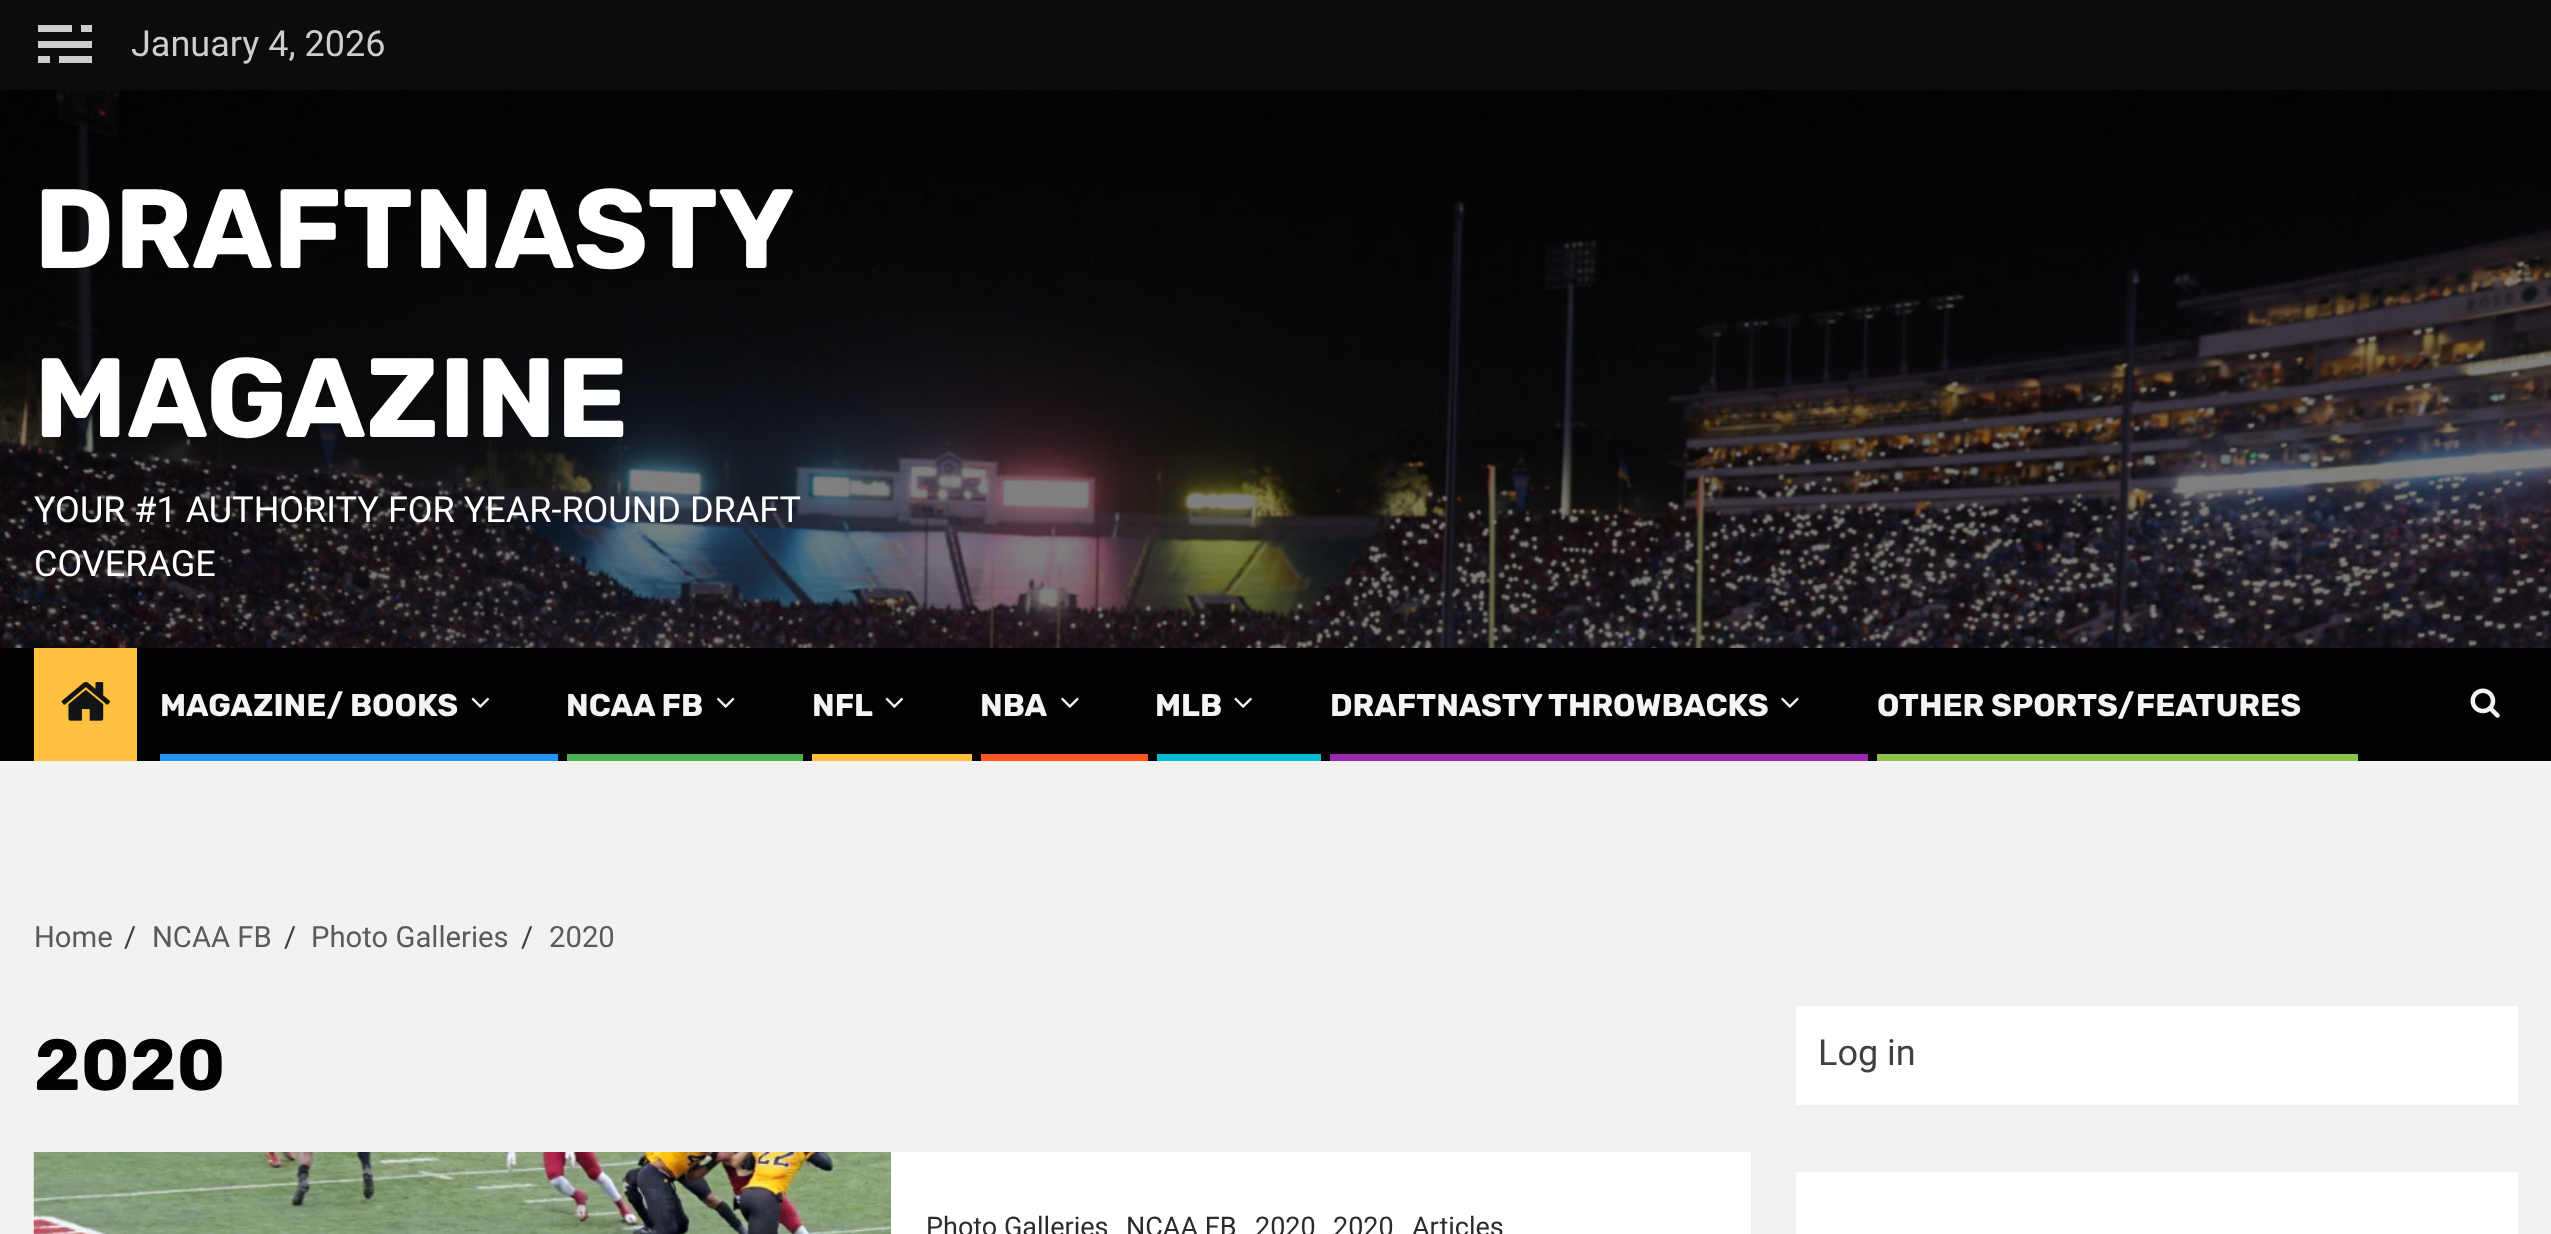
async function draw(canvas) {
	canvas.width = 2551;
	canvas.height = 1234;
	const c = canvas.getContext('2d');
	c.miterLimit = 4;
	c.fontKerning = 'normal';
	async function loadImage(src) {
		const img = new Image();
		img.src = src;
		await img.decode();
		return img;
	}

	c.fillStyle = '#f2f2f2';
	c.fillRect(0, 0, 2551, 1234);
	for (const [x, y, w, h, color] of [
		[0, 0, 2551, 90, '#0c0c0c'],
		[81, 25, 11, 7, '#cecece'],
		[38, 25, 34, 7, '#cecece'],
		[38, 41, 54, 7, '#cecece'],
		[59, 56, 33, 7, '#cecece'],
		[38, 56, 12, 7, '#cecece'],
	]) {
		c.fillStyle = color;
		c.fillRect(x, y, w, h);
	}
	c.font = '36px Roboto';
	c.fillText('January 4, 2026', 131, 56);
	c.drawImage(await loadImage('img1.png'), 0, 90, 2551, 558);
	c.font = 'bold 112.5px Rubik';
	c.fillStyle = '#fff';
	c.fillText('DRAFTNASTY', 34, 268);
	c.fillText('MAGAZINE', 34, 437);
	c.font = '36px Roboto';
	c.fillText('YOUR #1 AUTHORITY FOR YEAR-ROUND DRAFT', 34, 522);
	c.fillText('COVERAGE', 34, 576);
	c.fillStyle = '#020202';
	c.fillRect(0, 648, 2551, 113);
	c.fillStyle = '#ffbf3f';
	c.fillRect(34, 648, 103, 113);
	c.drawImage(await loadImage('img2.png'), 61, 682, 50, 39);
	c.font = 'bold 31.5px Rubik';
	c.fillStyle = '#f4f4f4';
	c.fillText('MAGAZINE/ BOOKS', 160, 716);
	c.drawImage(await loadImage('img3.png'), 471, 697, 19, 11);
	c.fillStyle = '#2196f3';
	c.fillRect(160, 754, 398, 7);
	c.fillStyle = '#f4f4f4';
	c.fillText('NCAA FB', 566, 716);
	c.drawImage(await loadImage('img4.png'), 716, 697, 19, 11);
	c.fillStyle = '#4caf50';
	c.fillRect(567, 754, 236, 7);
	c.fillStyle = '#f4f4f4';
	c.fillText('NFL', 812, 716);
	c.drawImage(await loadImage('img3.png'), 885, 697, 19, 11);
	c.fillStyle = '#ffbf3f';
	c.fillRect(812, 754, 160, 7);
	c.fillStyle = '#f4f4f4';
	c.fillText('NBA', 980, 716);
	c.drawImage(await loadImage('img5.png'), 1061, 697, 18, 11);
	c.fillStyle = '#ff5722';
	c.fillRect(981, 754, 167, 7);
	c.fillStyle = '#f4f4f4';
	c.fillText('MLB', 1155, 716);
	c.drawImage(await loadImage('img6.png'), 1234, 697, 18, 11);
	c.fillStyle = '#00bcd4';
	c.fillRect(1157, 754, 164, 7);
	c.fillStyle = '#f4f4f4';
	c.fillText('DRAFTNASTY THROWBACKS', 1330, 716);
	c.drawImage(await loadImage('img5.png'), 1781, 697, 18, 11);
	c.fillStyle = '#9c27b0';
	c.fillRect(1330, 754, 538, 7);
	c.fillStyle = '#f4f4f4';
	c.fillText('OTHER SPORTS/FEATURES', 1877, 716);
	c.fillStyle = '#8bc34a';
	c.fillRect(1877, 754, 481, 7);
	c.drawImage(await loadImage('img7.png'), 2470, 688, 30, 30);
	c.font = '29.25px Roboto';
	c.fillStyle = '#5a5a5a';
	c.fillText('Home', 34, 947);
	c.fillStyle = '#393e46';
	c.fillText('/', 124, 947);
	c.fillStyle = '#5a5a5a';
	c.fillText('NCAA FB', 152, 947);
	c.fillStyle = '#393e46';
	c.fillText('/', 284, 947);
	c.fillStyle = '#5a5a5a';
	c.fillText('Photo Galleries', 311, 947);
	c.fillStyle = '#393e46';
	c.fillText('/', 521, 947);
	c.fillStyle = '#5a5a5a';
	c.fillText('2020', 549, 947);
	c.font = 'bold 72px Rubik';
	c.fillStyle = '#020202';
	c.fillText('2020', 34, 1090);
	c.fillStyle = '#fff';
	c.fillRect(891, 1152, 860, 82);
	c.drawImage(await loadImage('img8.png'), 33, 1152, 858, 82);
	c.font = '27px Roboto';
	c.fillStyle = '#2b2b2b';
	for (const [text, x, y] of [
		['Photo Galleries', 926, 1236],
		['NCAA FB', 1126, 1236],
		['2020', 1255, 1236],
		['2020', 1333, 1236],
		['Articles', 1412, 1236],
	]) {
		c.fillText(text, x, y);
	}
	c.fillStyle = '#fff';
	c.fillRect(1796, 1006, 722, 99);
	c.font = '36px Roboto';
	c.fillStyle = '#404040';
	c.fillText('Log in', 1818, 1065);
	c.fillStyle = '#fff';
	c.fillRect(1796, 1172, 722, 62);
}

draw(document.querySelector('canvas'));
